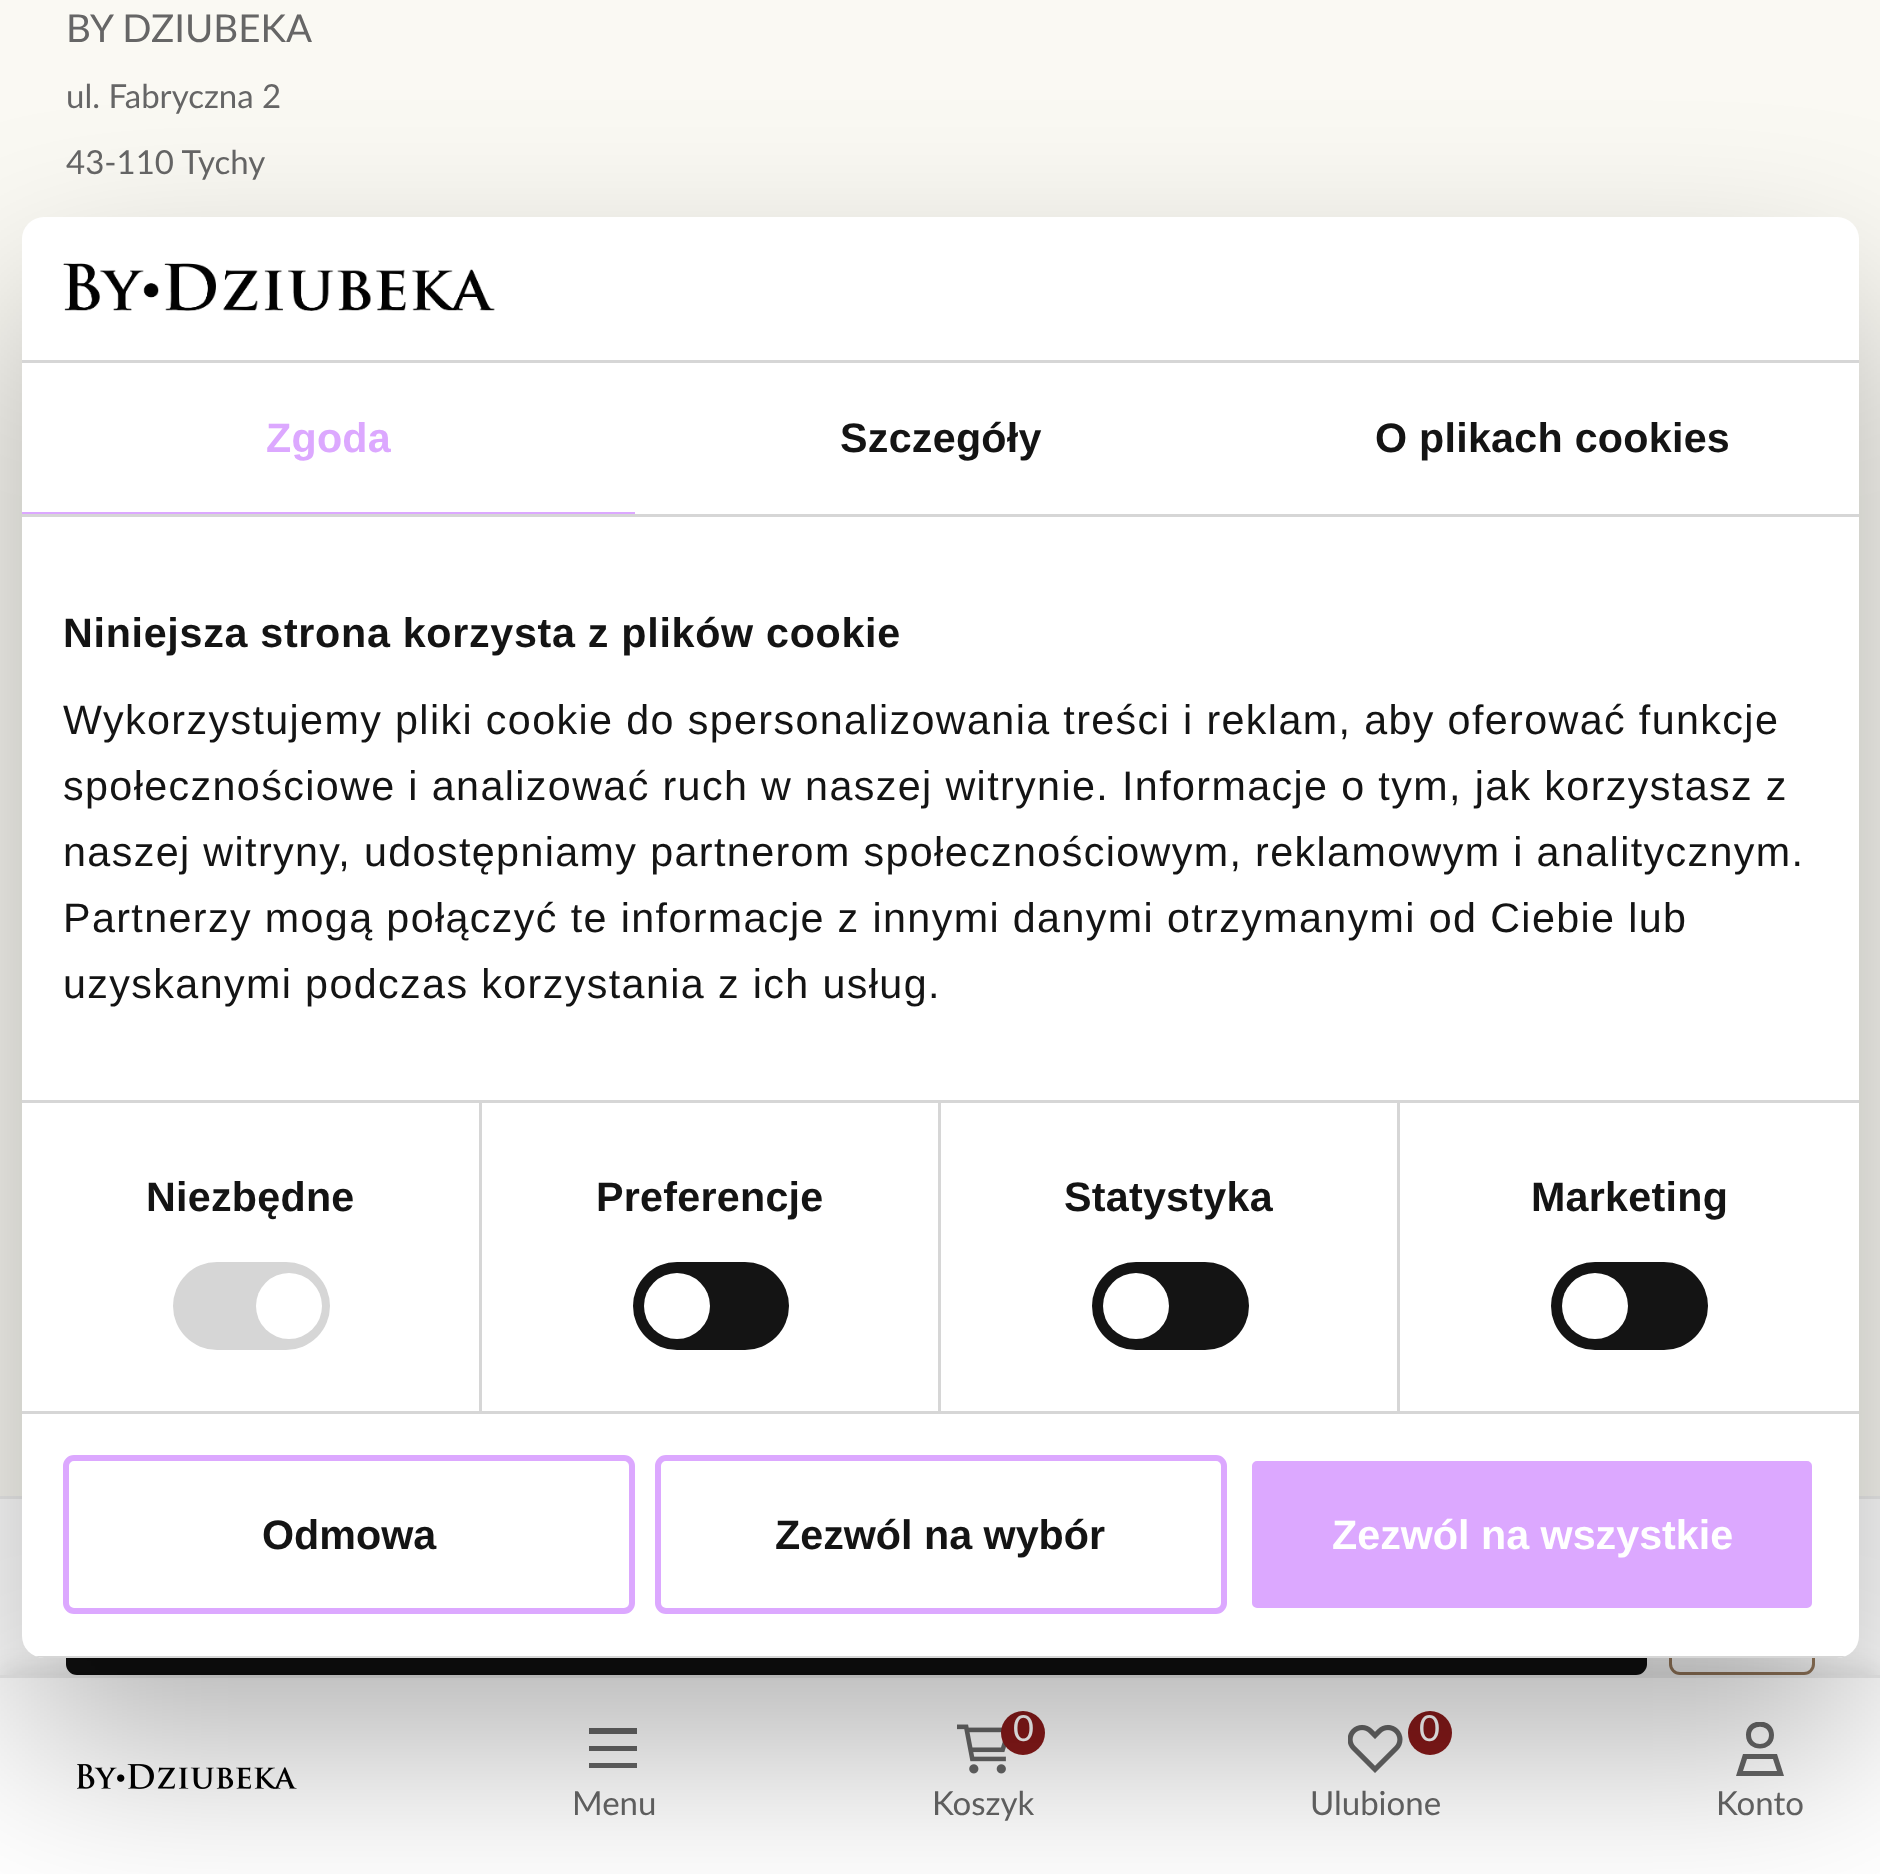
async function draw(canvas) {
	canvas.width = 1880;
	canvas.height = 1874;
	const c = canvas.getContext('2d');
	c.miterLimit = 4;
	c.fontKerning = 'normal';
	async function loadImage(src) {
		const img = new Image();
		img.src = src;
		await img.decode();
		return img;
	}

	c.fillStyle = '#faf9f3';
	c.fillRect(0, 0, 1880, 1874);
	c.font = '38.5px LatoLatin';
	c.fillStyle = '#666';
	c.fillText('BY DZIUBEKA', 66, 42);
	c.font = '33px LatoLatin';
	c.fillText('ul. Fabryczna 2', 66, 108);
	c.fillText('43-110 Tychy', 66, 174);
	c.fillStyle = '#fff';
	c.fillRect(0, 1499, 1880, 176);
	c.fillStyle = '#eee';
	c.fillRect(0, 1496, 1880, 3);
	c.fillStyle = '#111';
	c.beginPath();
	c.roundRect(66, 1521, 1581, 154, 11);
	c.fill();
	c.beginPath();
	c.roundRect(1670.5, 1522.5, 143, 151, 9.5);
	c.strokeStyle = '#997b5e';
	c.lineWidth = 3;
	c.stroke();
	c.fillStyle = '#0000001a';
	c.filter = 'blur(11px)';
	c.beginPath();
	c.rect(0, 1669, 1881, 201);
	c.fill();
	c.filter = 'none';
	c.fillStyle = '#fff';
	c.fillRect(0, 1678, 1880, 196);
	c.fillStyle = '#eee';
	c.fillRect(0, 1675, 1880, 3);
	c.drawImage(await loadImage('img1.png'), 77, 1764, 220, 25);
	c.drawImage(await loadImage('img2.png'), 957, 1724, 49, 50);
	c.fillStyle = '#881a1a';
	c.beginPath();
	c.arc(1023, 1733, 22, 0, 2 * Math.PI);
	c.fill();
	c.font = '36px LatoLatin';
	c.fillStyle = '#fff';
	c.fillText('0', 1013, 1741);
	c.font = '33px LatoLatin';
	c.fillStyle = '#666';
	c.fillText('Koszyk', 932, 1815);
	c.drawImage(await loadImage('img3.png'), 1348, 1724, 55, 49);
	c.fillStyle = '#881a1a';
	c.beginPath();
	c.arc(1430, 1733, 22, 0, 2 * Math.PI);
	c.fill();
	c.font = '36px LatoLatin';
	c.fillStyle = '#fff';
	c.fillText('0', 1419, 1741);
	c.font = '33px LatoLatin';
	c.fillStyle = '#666';
	c.fillText('Ulubione', 1310, 1815);
	c.beginPath();
	c.moveTo(589, 1728);
	c.lineTo(637, 1728);
	c.lineTo(637, 1734);
	c.lineTo(589, 1734);
	c.closePath();
	c.moveTo(589, 1746);
	c.lineTo(637, 1746);
	c.lineTo(637, 1751);
	c.lineTo(589, 1751);
	c.closePath();
	c.moveTo(637, 1763);
	c.lineTo(637, 1768);
	c.lineTo(589, 1768);
	c.lineTo(589, 1763);
	c.closePath();
	c.fill();
	c.fillText('Menu', 572, 1815);
	c.save();
	c.beginPath();
	c.rect(1733, 1722, 55, 55);
	c.clip();
	c.beginPath();
	c.moveTo(1769, 1735);
	c.bezierCurveTo(1769, 1724, 1751, 1724, 1751, 1735);
	c.bezierCurveTo(1751, 1747, 1769, 1747, 1769, 1735);
	c.closePath();
	c.moveTo(1746, 1735);
	c.bezierCurveTo(1746, 1717, 1774, 1717, 1774, 1735);
	c.bezierCurveTo(1774, 1753, 1746, 1753, 1746, 1735);
	c.closePath();
	c.moveTo(1743, 1771);
	c.lineTo(1777, 1771);
	c.lineTo(1773, 1759);
	c.lineTo(1747, 1759);
	c.closePath();
	c.moveTo(1743, 1754);
	c.lineTo(1777, 1754);
	c.lineTo(1784, 1776);
	c.lineTo(1736, 1776);
	c.closePath();
	c.fill();
	c.restore();
	c.fillText('Konto', 1716, 1815);
	c.fillStyle = '#0000004d';
	c.filter = 'blur(93.5px)';
	c.beginPath();
	c.roundRect(22, 305, 1837, 1441, 22);
	c.fill();
	c.filter = 'none';
	c.fillStyle = '#fff';
	c.beginPath();
	c.roundRect(22, 217, 1837, 1441, 22);
	c.fill();
	c.fillStyle = '#d6d6d6';
	c.fillRect(22, 360, 1837, 3);
	c.drawImage(await loadImage('img4.png'), 63, 263, 432, 48);
	c.fillRect(22, 514, 1837, 3);
	c.fillStyle = '#dca8ff';
	c.fillRect(22, 512, 613, 2);
	c.letterSpacing = '0.25px';
	c.font = 'bold 41.25px Liberation Sans';
	c.fillText('Zgoda', 266, 452);
	c.fillStyle = '#141414';
	c.fillText('Szczegóły', 840, 452);
	c.fillText('O plikach cookies', 1375, 452);
	c.fillStyle = '#d6d6d6';
	c.fillRect(22, 1100, 1837, 3);
	c.letterSpacing = '0.7px';
	c.fillStyle = '#141414';
	c.fillText('Niniejsza strona korzysta z plików cookie', 63, 647);
	c.letterSpacing = '1.38px';
	c.font = '41.25px Liberation Sans';
	for (const [text, x, y] of [
		['Wykorzystujemy pliki cookie do spersonalizowania treści i reklam, aby oferować funkcje', 63, 734],
		['społecznościowe i analizować ruch w naszej witrynie. Informacje o tym, jak korzystasz z', 63, 800],
		['naszej witryny, udostępniamy partnerom społecznościowym, reklamowym i analitycznym.', 63, 866],
		['Partnerzy mogą połączyć te informacje z innymi danymi otrzymanymi od Ciebie lub', 63, 932],
		['uzyskanymi podczas korzystania z ich usług.', 63, 998],
	]) {
		c.fillText(text, x, y);
	}
	c.fillStyle = '#d6d6d6';
	c.fillRect(22, 1411, 1837, 3);
	c.fillRect(479, 1103, 3, 308);
	c.letterSpacing = '0.25px';
	c.font = 'bold 41.25px Liberation Sans';
	c.fillStyle = '#141414';
	c.fillText('Niezbędne', 146, 1211);
	c.fillStyle = '#d6d6d6';
	c.beginPath();
	c.roundRect(173, 1262, 157, 88, 44);
	c.fill();
	c.fillStyle = '#fff';
	c.beginPath();
	c.arc(289, 1306, 33, 0, 2 * Math.PI);
	c.fill();
	c.fillStyle = '#d6d6d6';
	c.fillRect(938, 1103, 3, 308);
	c.fillStyle = '#141414';
	c.fillText('Preferencje', 596, 1211);
	c.beginPath();
	c.roundRect(633, 1262, 156, 88, 44);
	c.fill();
	c.fillStyle = '#fff';
	c.beginPath();
	c.arc(677, 1306, 33, 0, 2 * Math.PI);
	c.fill();
	c.fillStyle = '#d6d6d6';
	c.fillRect(1397, 1103, 3, 308);
	c.fillStyle = '#141414';
	c.fillText('Statystyka', 1064, 1211);
	c.beginPath();
	c.roundRect(1092, 1262, 157, 88, 44);
	c.fill();
	c.fillStyle = '#fff';
	c.beginPath();
	c.arc(1136, 1306, 33, 0, 2 * Math.PI);
	c.fill();
	c.fillStyle = '#141414';
	c.fillText('Marketing', 1531, 1211);
	c.beginPath();
	c.roundRect(1551, 1262, 157, 88, 44);
	c.fill();
	c.fillStyle = '#fff';
	c.beginPath();
	c.arc(1595, 1306, 33, 0, 2 * Math.PI);
	c.fill();
	c.save();
	c.beginPath();
	c.roundRect(22, 217, 1837, 1441, 22);
	c.clip();
	c.fillStyle = '#d6d6d6';
	c.fillRect(35, 1656, 1811, 2);
	c.restore();
	c.beginPath();
	c.roundRect(66, 1458, 566, 153, 8);
	c.strokeStyle = '#dca8ff';
	c.lineWidth = 6;
	c.stroke();
	c.letterSpacing = '0px';
	c.fillStyle = '#141414';
	c.fillText('Odmowa', 262, 1549);
	c.beginPath();
	c.roundRect(658, 1458, 566, 153, 8);
	c.stroke();
	c.fillText('Zezwól na wybór', 775, 1549);
	c.fillStyle = '#dca8ff';
	c.beginPath();
	c.roundRect(1249, 1458, 566, 153, 8);
	c.fill();
	c.strokeStyle = '#fff';
	c.stroke();
	c.fillStyle = '#fff';
	c.fillText('Zezwól na wszystkie', 1332, 1549);
}

draw(document.querySelector('canvas'));
